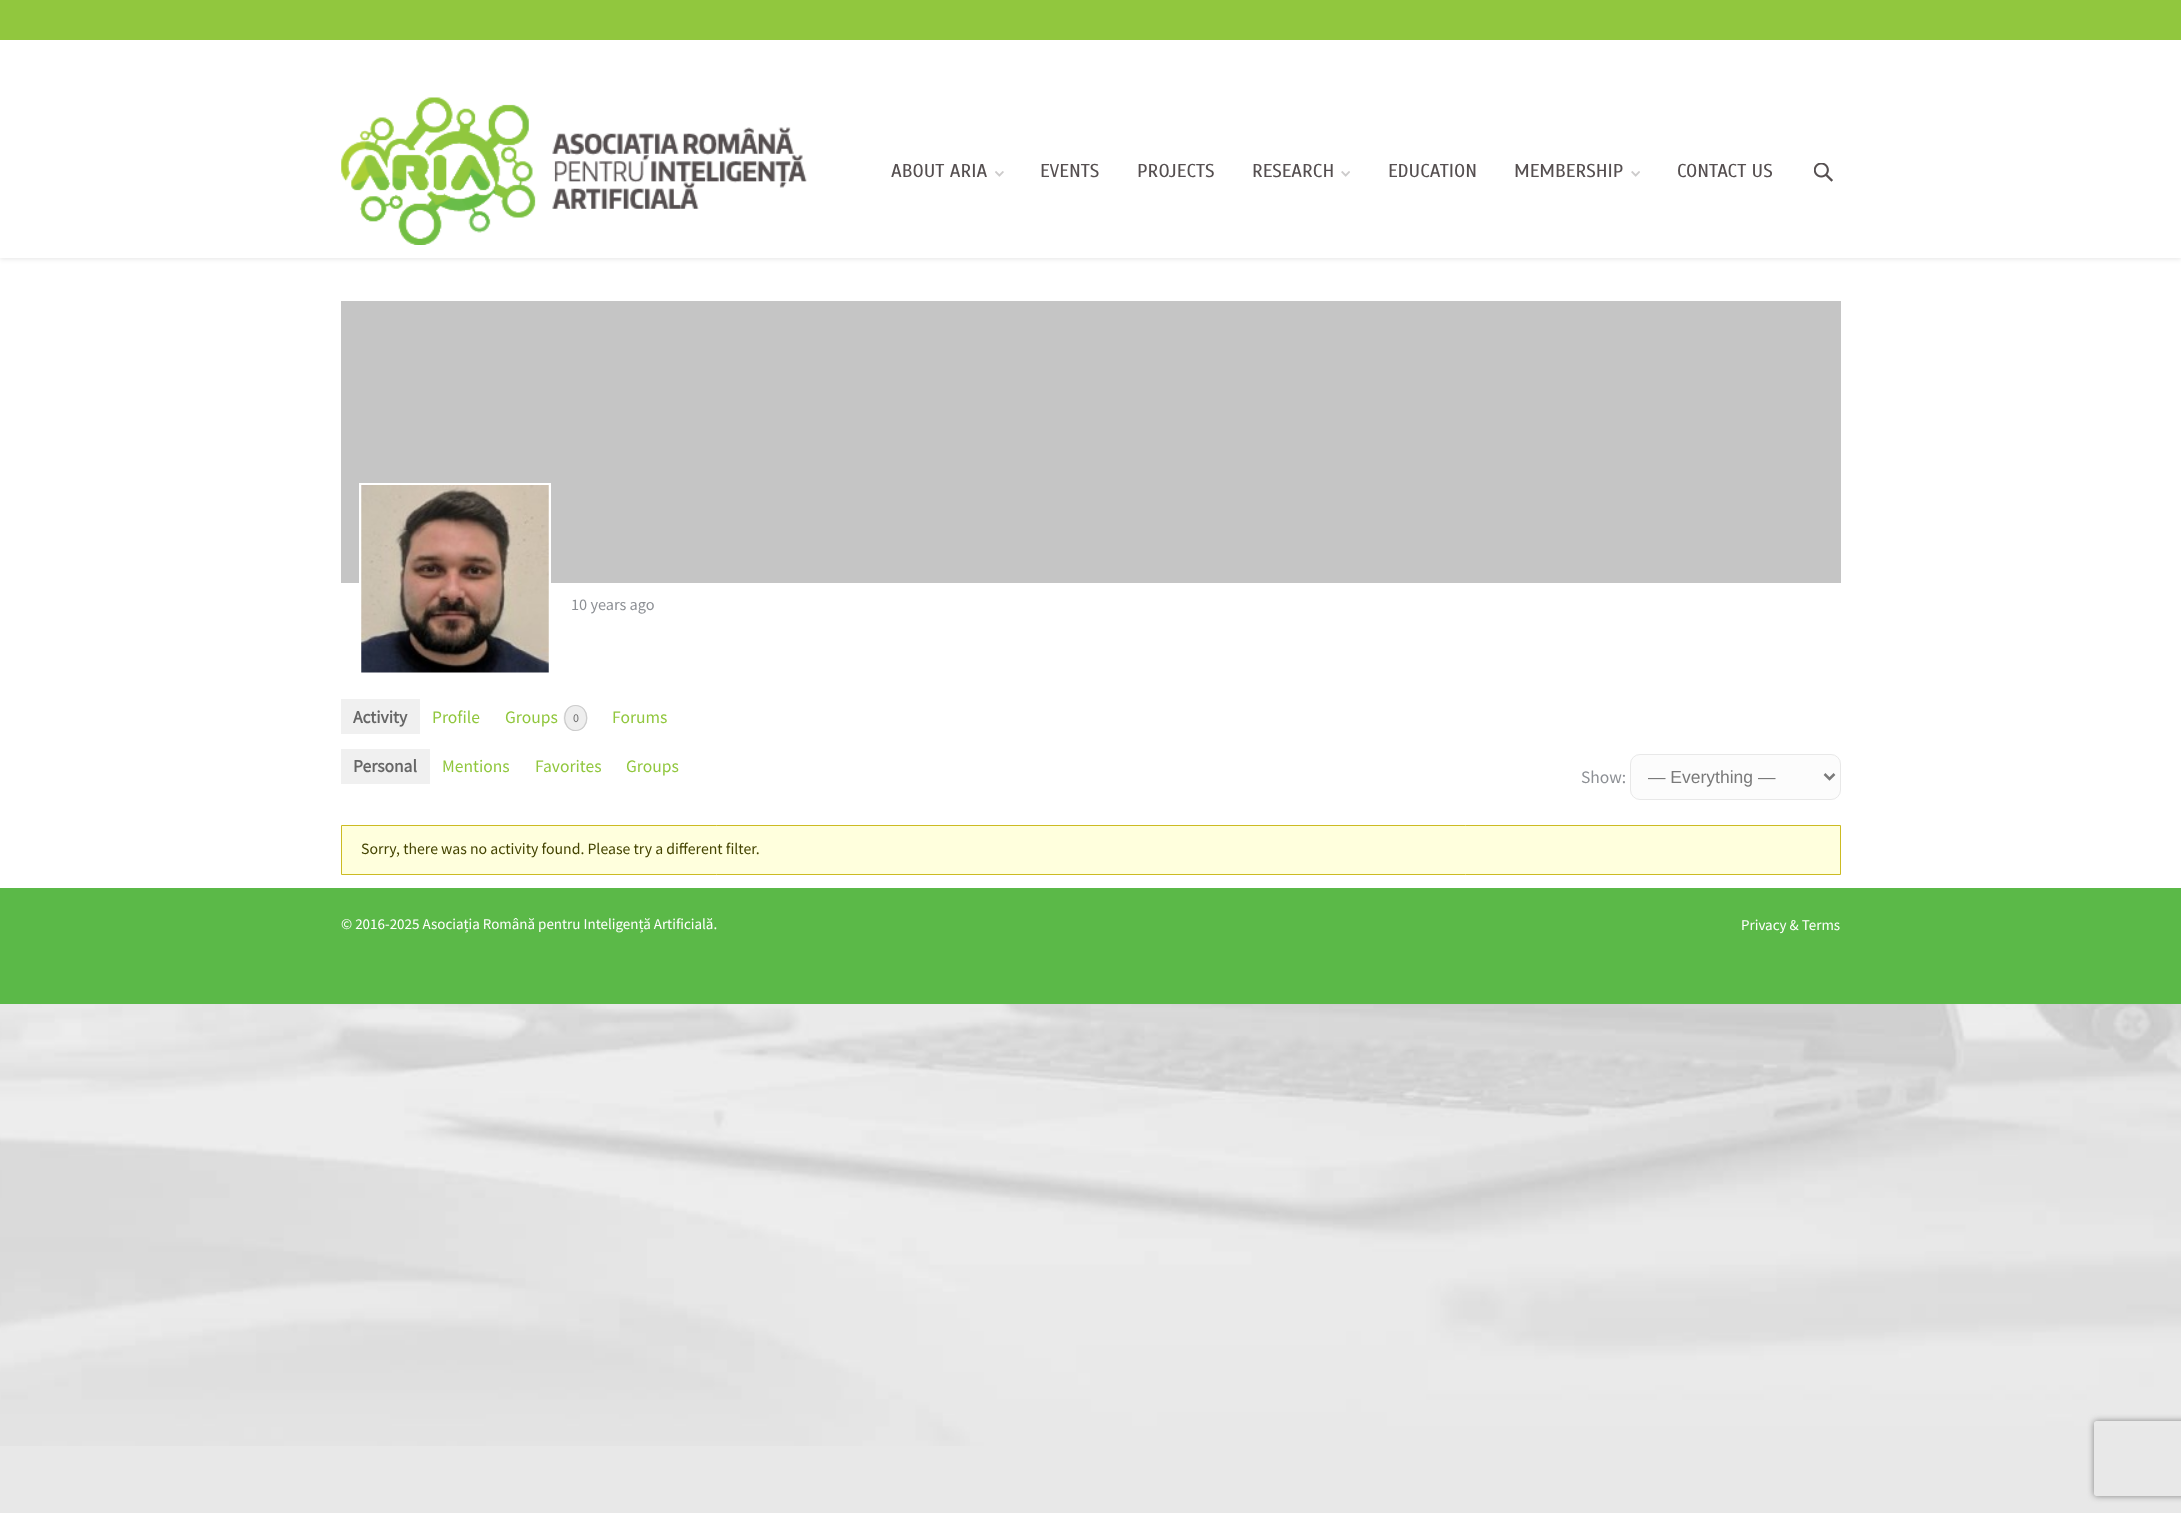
async function draw(canvas) {
	canvas.width = 2181;
	canvas.height = 1513;
	const c = canvas.getContext('2d');
	c.miterLimit = 4;
	c.fontKerning = 'normal';
	async function loadImage(src) {
		const img = new Image();
		img.src = src;
		await img.decode();
		return img;
	}

	c.fillStyle = '#e8e8e8';
	c.fillRect(0, 0, 2181, 1513);
	c.drawImage(await loadImage('img1.png'), 0, 1004, 2181, 442);
	c.fillStyle = '#fff';
	c.fillRect(0, 258, 2181, 630);
	c.fillStyle = '#0000001a';
	c.filter = 'blur(2.5px)';
	c.beginPath();
	c.rect(0, 41, 2181, 218);
	c.fill();
	c.filter = 'none';
	c.fillStyle = '#91c73e';
	c.fillRect(0, 0, 2181, 40);
	c.fillStyle = '#fff';
	c.fillRect(0, 40, 2181, 218);
	c.drawImage(await loadImage('img2.png'), 341, 97, 466, 148);
	c.font = '18.75px Scada';
	c.fillStyle = '#554f50';
	c.fillText('ABOUT ARIA', 891, 177);
	c.drawImage(await loadImage('img3.png'), 995, 171, 9, 6);
	for (const [text, x, y] of [
		['EVENTS', 1040, 177],
		['PROJECTS', 1137, 177],
		['RESEARCH', 1252, 177],
	]) {
		c.fillText(text, x, y);
	}
	c.drawImage(await loadImage('img4.png'), 1341, 171, 9, 6);
	c.fillText('EDUCATION', 1388, 177);
	c.fillText('MEMBERSHIP', 1514, 177);
	c.drawImage(await loadImage('img4.png'), 1631, 171, 9, 6);
	c.fillText('CONTACT US', 1677, 177);
	c.drawImage(await loadImage('img5.png'), 1814, 163, 19, 19);
	c.fillStyle = '#c5c5c5';
	c.fillRect(341, 301, 1500, 282);
	c.strokeStyle = '#fff';
	c.lineWidth = 3;
	c.strokeRect(360.5, 484.5, 189, 189);
	c.drawImage(await loadImage('img6.png'), 361, 485, 188, 188);
	c.font = '16.25px Source Sans Pro';
	c.fillStyle = '#8d9095';
	c.fillText('10 years ago', 571, 610);
	c.fillStyle = '#f0f0f0';
	c.fillRect(341, 699, 79, 35);
	c.font = 'bold 17.5px Source Sans Pro';
	c.fillStyle = '#666';
	c.fillText('Activity', 353, 723);
	c.font = '17.5px Source Sans Pro';
	c.fillStyle = '#91c73e';
	c.fillText('Profile', 432, 723);
	c.fillText('Groups', 505, 723);
	c.fillStyle = '#eee';
	c.beginPath();
	c.ellipse(575.5, 718, 12, 13, 0, 0, 2 * Math.PI);
	c.fill();
	c.beginPath();
	c.moveTo(575.5, 705.5);
	c.bezierCurveTo(590.5, 705.5, 590.5, 730.5, 575.5, 730.5);
	c.bezierCurveTo(561, 730.5, 561, 705.5, 575.5, 705.5);
	c.closePath();
	c.strokeStyle = '#ccc';
	c.lineWidth = 1.2;
	c.stroke();
	c.font = '12px Source Sans Pro';
	c.fillStyle = '#6c6c6c';
	c.fillText('0', 573, 722);
	c.font = '17.5px Source Sans Pro';
	c.fillStyle = '#91c73e';
	c.fillText('Forums', 612, 723);
	c.fillStyle = '#f0f0f0';
	c.fillRect(341, 749, 89, 35);
	c.font = 'bold 17.5px Source Sans Pro';
	c.fillStyle = '#666';
	c.fillText('Personal', 353, 772);
	c.font = '17.5px Source Sans Pro';
	c.fillStyle = '#91c73e';
	for (const [text, x, y] of [
		['Mentions', 442, 772],
		['Favorites', 535, 772],
		['Groups', 626, 772],
	]) {
		c.fillText(text, x, y);
	}
	c.fillStyle = '#8d9095';
	c.fillText('Show:', 1581, 783);
	c.fillStyle = '#fcfcfc';
	c.beginPath();
	c.roundRect(1630.5, 754.5, 210, 45, 9.5);
	c.fill();
	c.strokeStyle = '#e8e8e8';
	c.lineWidth = 1;
	c.stroke();
	c.beginPath();
	c.moveTo(1824.5, 774);
	c.lineTo(1829.5, 779);
	c.lineTo(1834.5, 774);
	c.strokeStyle = '#7a7a7a';
	c.lineWidth = 2.5;
	c.stroke();
	c.font = '17.5px Liberation Sans';
	c.fillStyle = '#7a7a7a';
	c.fillText('— Everything —', 1648, 783);
	c.fillStyle = '#ffd';
	c.beginPath();
	c.rect(341.5, 825.5, 1499, 49);
	c.fill();
	c.strokeStyle = '#cb2';
	c.lineWidth = 1;
	c.stroke();
	c.font = '15.75px Source Sans Pro';
	c.fillStyle = '#440';
	c.fillText('Sorry, there was no activity found. Please try a different filter.', 361, 854);
	c.fillStyle = '#5bb948';
	c.fillRect(0, 888, 2181, 116);
	c.font = '15px Source Sans Pro';
	c.fillStyle = '#fff';
	c.fillText('© 2016-2025 Asociația Română pentru Inteligență Artificială.', 341, 929);
	c.fillText('Privacy & Terms', 1741, 930);
	c.save();
	c.beginPath();
	c.moveTo(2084, 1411);
	c.lineTo(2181, 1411);
	c.lineTo(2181, 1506);
	c.lineTo(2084, 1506);
	c.closePath();
	c.moveTo(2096.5, 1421);
	c.lineTo(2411.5, 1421);
	c.bezierCurveTo(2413, 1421, 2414, 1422, 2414, 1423.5);
	c.lineTo(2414, 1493.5);
	c.bezierCurveTo(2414, 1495, 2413, 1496, 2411.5, 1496);
	c.lineTo(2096.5, 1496);
	c.bezierCurveTo(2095, 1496, 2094, 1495, 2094, 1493.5);
	c.lineTo(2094, 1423.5);
	c.bezierCurveTo(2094, 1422, 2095, 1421, 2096.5, 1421);
	c.closePath();
	c.clip('evenodd');
	c.fillStyle = '#808080';
	c.filter = 'blur(3px)';
	c.beginPath();
	c.roundRect(2094, 1421, 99, 75, 2.5);
	c.fill();
	c.filter = 'none';
	c.restore();
}

draw(document.querySelector('canvas'));
